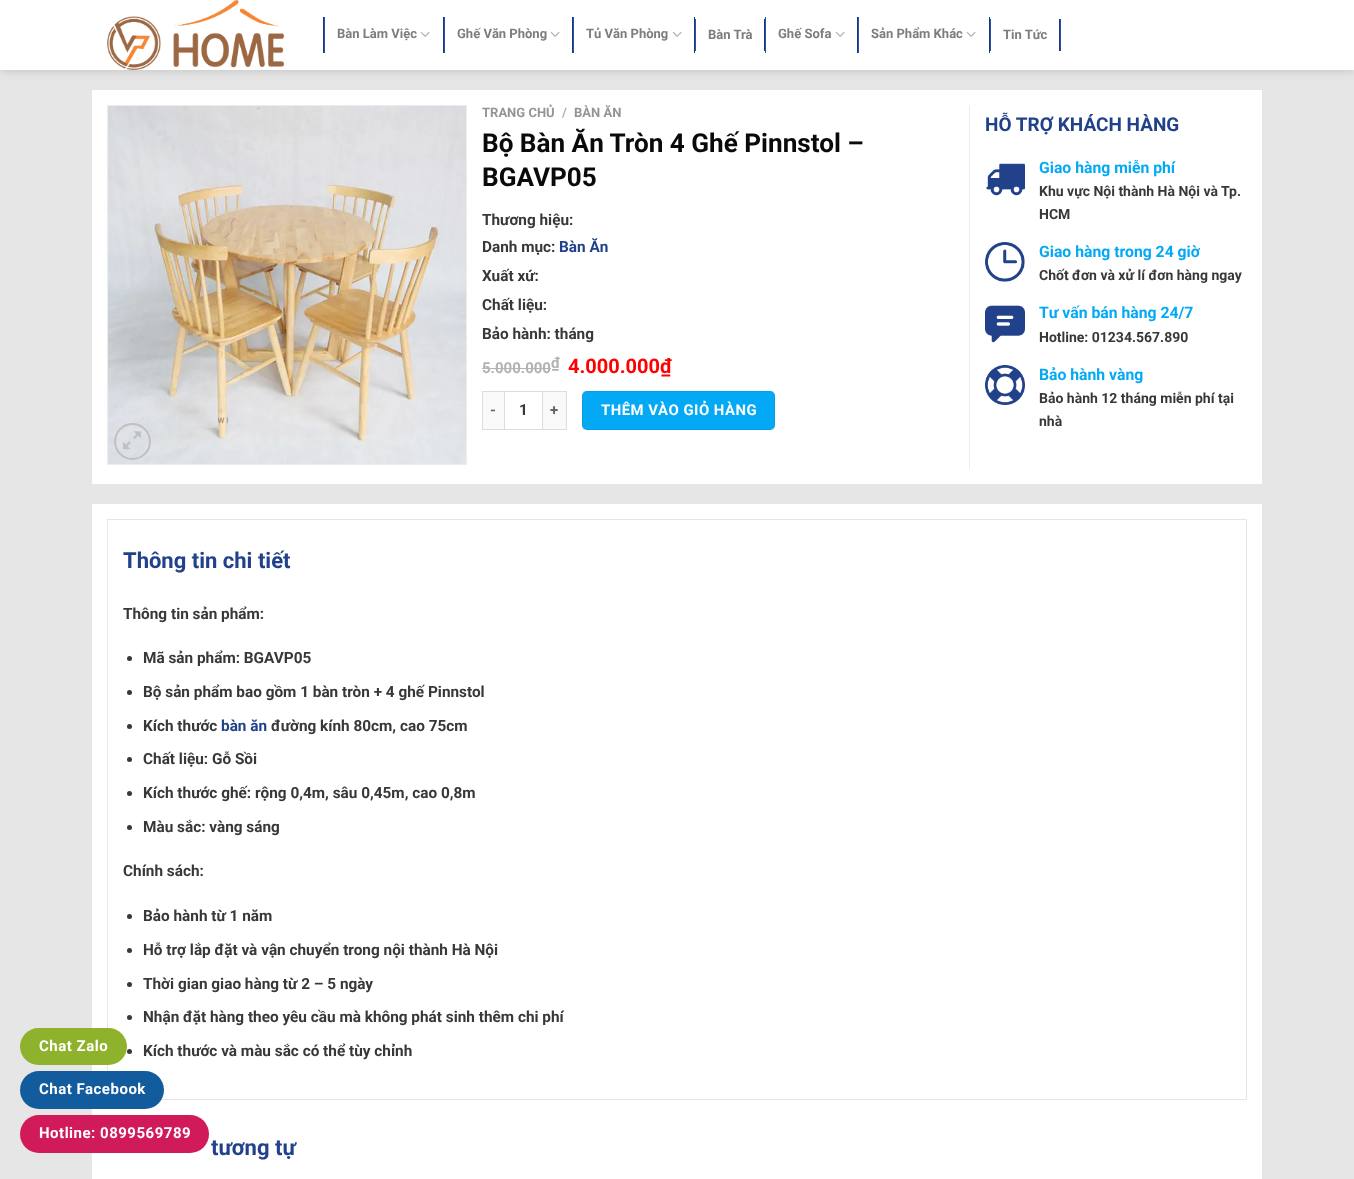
async function draw(canvas) {
	canvas.width = 1354;
	canvas.height = 1179;
	const c = canvas.getContext('2d');
	c.miterLimit = 4;
	c.fontKerning = 'normal';
	async function loadImage(src) {
		const img = new Image();
		img.src = src;
		await img.decode();
		return img;
	}

	c.fillStyle = '#e6e6e6';
	c.fillRect(0, 0, 1354, 1179);
	c.fillStyle = '#fff';
	c.fillRect(92, 504, 1170, 675);
	c.strokeStyle = '#e6e6e6';
	c.strokeRect(107.5, 519.5, 1139, 580);
	c.fillStyle = '#8eb22b';
	c.beginPath();
	c.roundRect(20, 1028, 107, 37, 18.5);
	c.fill();
	c.letterSpacing = '0.5px';
	c.font = 'bold 15px Roboto';
	c.fillStyle = '#fff';
	c.fillText('Chat Zalo', 39, 1051);
	c.fillStyle = '#125c9e';
	c.beginPath();
	c.roundRect(20, 1071, 144, 38, 19);
	c.fill();
	c.fillStyle = '#fff';
	c.fillText('Chat Facebook', 39, 1094);
	c.fillStyle = '#d11a59';
	c.beginPath();
	c.roundRect(20, 1115, 189, 38, 19);
	c.fill();
	c.fillStyle = '#fff';
	c.fillText('Hotline: 0899569789', 39, 1138);
	c.fillStyle = '#00000026';
	c.filter = 'blur(5px)';
	c.beginPath();
	c.rect(1, 1, 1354, 70);
	c.fill();
	c.filter = 'none';
	c.fillStyle = '#fff';
	c.fillRect(0, 0, 1354, 70);
	c.drawImage(await loadImage('img1.png'), 107, 0, 177, 70);
	for (const [x, y, w, h, color] of [
		[323, 17, 1, 36, '#18377b'],
		[443, 17, 1, 36, '#18377b'],
		[324, 17, 1, 36, '#2951a7'],
	]) {
		c.fillStyle = color;
		c.fillRect(x, y, w, h);
	}
	c.letterSpacing = '0px';
	c.font = 'bold 13px Roboto';
	c.fillStyle = '#7d7d7d';
	c.fillText('Bàn Làm Việc', 337, 38);
	c.drawImage(await loadImage('img2.png'), 420, 31, 10, 6);
	c.fillStyle = '#18377b';
	c.fillRect(572, 17, 1, 36);
	c.fillStyle = '#2951a7';
	c.fillRect(444, 17, 1, 36);
	c.fillStyle = '#7d7d7d';
	c.fillText('Ghế Văn Phòng', 457, 38);
	c.drawImage(await loadImage('img2.png'), 550, 31, 10, 6);
	c.fillStyle = '#18377b';
	c.fillRect(694, 17, 1, 36);
	c.fillStyle = '#2951a7';
	c.fillRect(573, 17, 1, 36);
	c.fillStyle = '#7d7d7d';
	c.fillText('Tủ Văn Phòng', 586, 38);
	c.drawImage(await loadImage('img2.png'), 672, 31, 10, 6);
	c.fillStyle = '#18377b';
	c.fillRect(764, 19, 1, 32);
	c.fillStyle = '#2951a7';
	c.fillRect(695, 19, 1, 32);
	c.fillStyle = '#7d7d7d';
	c.fillText('Bàn Trà', 708, 39);
	c.fillStyle = '#18377b';
	c.fillRect(857, 17, 1, 36);
	c.fillStyle = '#2951a7';
	c.fillRect(765, 17, 1, 36);
	c.fillStyle = '#7d7d7d';
	c.fillText('Ghế Sofa', 778, 38);
	c.drawImage(await loadImage('img2.png'), 835, 31, 10, 6);
	c.fillStyle = '#18377b';
	c.fillRect(989, 17, 1, 36);
	c.fillStyle = '#2951a7';
	c.fillRect(858, 17, 1, 36);
	c.fillStyle = '#7d7d7d';
	c.fillText('Sản Phẩm Khác', 871, 38);
	c.drawImage(await loadImage('img2.png'), 966, 31, 10, 6);
	for (const [x, y, w, h, color] of [
		[1060, 19, 1, 32, '#2951a7'],
		[1059, 19, 1, 32, '#18377b'],
		[990, 19, 1, 32, '#2951a7'],
	]) {
		c.fillStyle = color;
		c.fillRect(x, y, w, h);
	}
	c.fillStyle = '#7d7d7d';
	c.fillText('Tin Tức', 1003, 39);
	c.fillStyle = '#fff';
	c.fillRect(92, 90, 1170, 394);
	c.strokeStyle = '#ececec';
	c.strokeRect(107.5, 105.5, 359, 359);
	c.drawImage(await loadImage('img3.png'), 108, 106, 358, 358);
	c.beginPath();
	c.arc(132.5, 441.5, 17.5, 0, 2 * Math.PI);
	c.strokeStyle = '#c0c0c0';
	c.lineWidth = 2;
	c.stroke();
	c.drawImage(await loadImage('img4.png'), 123, 431, 18, 19);
	c.fillStyle = '#ececec';
	c.fillRect(969, 105, 1, 364);
	c.fillStyle = '#949494';
	c.fillText('TRANG CHỦ', 482, 117);
	c.fillStyle = '#b2b2b2';
	c.fillText('/', 562, 117);
	c.fillStyle = '#949494';
	c.fillText('BÀN ĂN', 574, 117);
	c.font = 'bold 26.1px Roboto';
	c.fillStyle = '#0a0a0a';
	c.fillText('Bộ Bàn Ăn Tròn 4 Ghế Pinnstol –', 482, 152);
	c.fillText('BGAVP05', 482, 186);
	c.font = 'bold 15.35px Roboto';
	c.fillStyle = '#383838';
	c.fillText('Thương hiệu:', 482, 225);
	c.fillText('Danh mục:', 482, 252);
	c.fillStyle = '#21428a';
	c.fillText('Bàn Ăn', 559, 252);
	c.fillStyle = '#383838';
	for (const [text, x, y] of [
		['Xuất xứ:', 482, 281],
		['Chất liệu:', 482, 310],
		['Bảo hành: tháng', 482, 339],
	]) {
		c.fillText(text, x, y);
	}
	c.font = 'bold 15px Roboto';
	c.fillStyle = '#b2b2b2';
	c.fillText('5.000.000', 482, 373);
	c.fillStyle = '#b3b3b3';
	c.fillRect(482, 368, 69, 1);
	c.fillStyle = '#b2b2b2';
	c.fillText('₫', 551, 368);
	c.font = 'bold 20px Roboto';
	c.fillStyle = '#f00';
	c.fillText('4.000.000₫', 568, 373);
	for (const [x, y, w, h, color] of [
		[483, 392, 21, 37, '#f9f9f9'],
		[482, 391, 22, 1, '#ddd'],
		[482, 429, 22, 1, '#ddd'],
		[482, 391, 1, 39, '#ddd'],
	]) {
		c.fillStyle = color;
		c.fillRect(x, y, w, h);
	}
	c.letterSpacing = '0.5px';
	c.font = 'bold 14.9px Roboto';
	c.fillStyle = '#666';
	c.fillText('-', 490, 415);
	c.strokeStyle = '#ddd';
	c.lineWidth = 1;
	c.strokeRect(504.5, 391.5, 38, 38);
	c.letterSpacing = '0px';
	c.font = 'bold 15.35px Roboto';
	c.fillStyle = '#383838';
	c.fillText('1', 519, 415);
	for (const [x, y, w, h, color] of [
		[543, 392, 23, 37, '#f9f9f9'],
		[543, 391, 24, 1, '#ddd'],
		[566, 391, 1, 39, '#ddd'],
		[543, 429, 24, 1, '#ddd'],
	]) {
		c.fillStyle = color;
		c.fillRect(x, y, w, h);
	}
	c.letterSpacing = '0.5px';
	c.font = 'bold 14.9px Roboto';
	c.fillStyle = '#666';
	c.fillText('+', 550, 415);
	c.fillStyle = '#03a9f4';
	c.beginPath();
	c.roundRect(582, 391, 193, 39, 5);
	c.fill();
	c.strokeStyle = '#0000000d';
	c.strokeRect(582.5, 391.5, 192, 38);
	c.fillStyle = '#fff';
	c.fillText('THÊM VÀO GIỎ HÀNG', 601, 415);
	c.letterSpacing = '0px';
	c.font = 'bold 19px Roboto';
	c.fillStyle = '#21428a';
	c.fillText('HỖ TRỢ KHÁCH HÀNG', 985, 131);
	c.drawImage(await loadImage('img5.png'), 986, 163, 39, 33);
	c.font = 'bold 15.75px Roboto';
	c.fillStyle = '#03a9f4';
	c.fillText('Giao hàng miễn phí', 1039, 173);
	c.font = 'bold 14px Roboto';
	c.fillStyle = '#383838';
	c.fillText('Khu vực Nội thành Hà Nội và Tp.', 1039, 196);
	c.fillText('HCM', 1039, 219);
	c.drawImage(await loadImage('img6.png'), 985, 242, 40, 40);
	c.font = 'bold 15.75px Roboto';
	c.fillStyle = '#03a9f4';
	c.fillText('Giao hàng trong 24 giờ', 1039, 257);
	c.font = 'bold 14px Roboto';
	c.fillStyle = '#383838';
	c.fillText('Chốt đơn và xử lí đơn hàng ngay', 1039, 280);
	c.drawImage(await loadImage('img7.png'), 985, 305, 40, 38);
	c.font = 'bold 15.75px Roboto';
	c.fillStyle = '#03a9f4';
	c.fillText('Tư vấn bán hàng 24/7', 1039, 318);
	c.font = 'bold 14px Roboto';
	c.fillStyle = '#383838';
	c.fillText('Hotline: 01234.567.890', 1039, 342);
	c.drawImage(await loadImage('img8.png'), 985, 365, 40, 40);
	c.font = 'bold 15.75px Roboto';
	c.fillStyle = '#03a9f4';
	c.fillText('Bảo hành vàng', 1039, 380);
	c.font = 'bold 14px Roboto';
	c.fillStyle = '#383838';
	c.fillText('Bảo hành 12 tháng miễn phí tại', 1039, 403);
	c.fillText('nhà', 1039, 426);
	c.font = 'bold 22px Roboto';
	c.fillStyle = '#21428a';
	c.fillText('Thông tin chi tiết', 123, 568);
	c.font = 'bold 15.35px Roboto';
	c.fillStyle = '#383838';
	c.fillText('Thông tin sản phẩm:', 123, 619);
	c.beginPath();
	c.arc(129.5, 658.5, 2.5, 0, 2 * Math.PI);
	c.fill();
	c.fillText('Mã sản phẩm: BGAVP05', 143, 663);
	c.beginPath();
	c.arc(129.5, 692.5, 2.5, 0, 2 * Math.PI);
	c.fill();
	c.fillText('Bộ sản phẩm bao gồm 1 bàn tròn + 4 ghế Pinnstol', 143, 697);
	c.beginPath();
	c.arc(129.5, 726.5, 2.5, 0, 2 * Math.PI);
	c.fill();
	c.fillText('Kích thước', 143, 731);
	c.fillStyle = '#21428a';
	c.fillText('bàn ăn', 221, 731);
	c.fillStyle = '#383838';
	c.fillText('đường kính 80cm, cao 75cm', 271, 731);
	c.beginPath();
	c.arc(129.5, 759.5, 2.5, 0, 2 * Math.PI);
	c.fill();
	c.fillText('Chất liệu: Gỗ Sồi', 143, 764);
	c.beginPath();
	c.arc(129.5, 793.5, 2.5, 0, 2 * Math.PI);
	c.fill();
	c.fillText('Kích thước ghế: rộng 0,4m, sâu 0,45m, cao 0,8m', 143, 798);
	c.beginPath();
	c.arc(129.5, 827.5, 2.5, 0, 2 * Math.PI);
	c.fill();
	c.fillText('Màu sắc: vàng sáng', 143, 832);
	c.fillText('Chính sách:', 123, 876);
	c.beginPath();
	c.arc(129.5, 916.5, 2.5, 0, 2 * Math.PI);
	c.fill();
	c.fillText('Bảo hành từ 1 năm', 143, 921);
	c.beginPath();
	c.arc(129.5, 950.5, 2.5, 0, 2 * Math.PI);
	c.fill();
	c.fillText('Hỗ trợ lắp đặt và vận chuyển trong nội thành Hà Nội', 143, 955);
	c.beginPath();
	c.arc(129.5, 984.5, 2.5, 0, 2 * Math.PI);
	c.fill();
	c.fillText('Thời gian giao hàng từ 2 – 5 ngày', 143, 989);
	c.beginPath();
	c.arc(129.5, 1017.5, 2.5, 0, 2 * Math.PI);
	c.fill();
	c.fillText('Nhận đặt hàng theo yêu cầu mà không phát sinh thêm chi phí', 143, 1022);
	c.beginPath();
	c.arc(129.5, 1051.5, 2.5, 0, 2 * Math.PI);
	c.fill();
	c.fillText('Kích thước và màu sắc có thể tùy chỉnh', 143, 1056);
	c.font = 'bold 22px Roboto';
	c.fillStyle = '#21428a';
	c.fillText('tương tự', 211, 1155);
}

draw(document.querySelector('canvas'));
